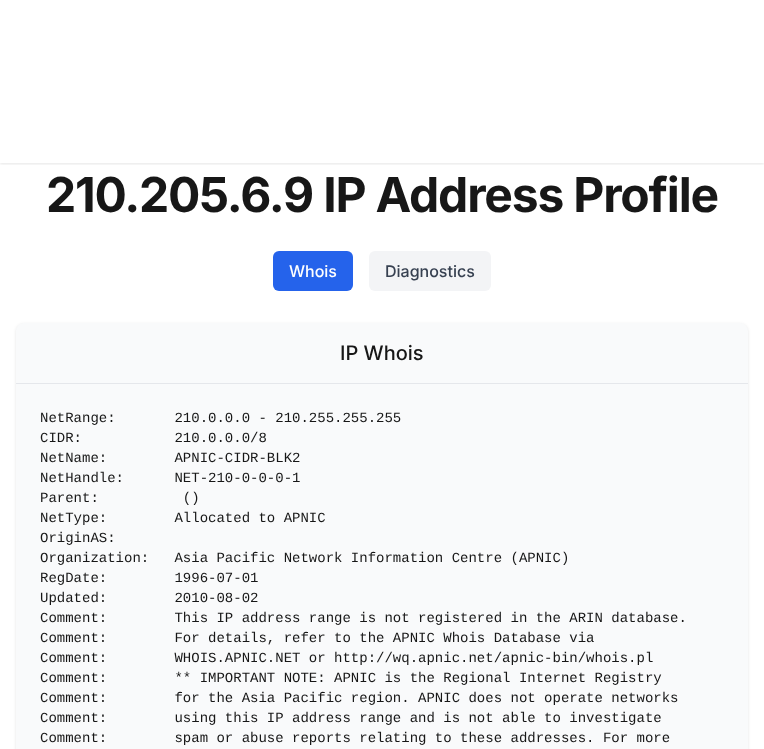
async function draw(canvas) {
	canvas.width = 764;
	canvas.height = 749;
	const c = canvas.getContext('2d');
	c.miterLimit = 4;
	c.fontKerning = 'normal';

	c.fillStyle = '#fff';
	c.fillRect(0, 0, 764, 749);
	c.save();
	c.beginPath();
	c.rect(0, 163, 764, 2);
	c.clip();
	c.fillStyle = '#0000001a';
	c.filter = 'blur(1.5px)';
	c.beginPath();
	c.rect(0, -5, 764, 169);
	c.fill();
	c.filter = 'none';
	c.restore();
	c.letterSpacing = '-1.2px';
	c.font = 'bold 48px Inter';
	c.fillStyle = '#171717';
	c.fillText('210.205.6.9 IP Address Profile', 46, 212);
	c.fillStyle = '#2563eb';
	c.beginPath();
	c.roundRect(273, 251, 80, 40, 6);
	c.fill();
	c.letterSpacing = '0px';
	c.font = '500 16px Inter';
	c.fillStyle = '#fff';
	c.fillText('Whois', 289, 277);
	c.fillStyle = '#f3f4f6';
	c.beginPath();
	c.roundRect(369, 251, 122, 40, 6);
	c.fill();
	c.fillStyle = '#374151';
	c.fillText('Diagnostics', 385, 277);
	c.fillStyle = '#0000001a';
	c.filter = 'blur(1.5px)';
	c.beginPath();
	c.roundRect(16, 324, 732, 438, 8);
	c.fill();
	c.filter = 'none';
	c.fillStyle = '#f9fafb';
	c.beginPath();
	c.roundRect(16, 323, 732, 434, 8);
	c.fill();
	c.fillStyle = '#e5e7eb';
	c.fillRect(16, 383, 732, 1);
	c.font = '500 20px Inter';
	c.fillStyle = '#171717';
	c.fillText('IP Whois', 340, 360);
	c.font = '14px Liberation Mono';
	for (const [text, x, y] of [
		['NetRange:       210.0.0.0 - 210.255.255.255', 40, 422],
		['CIDR:           210.0.0.0/8', 40, 442],
		['NetName:        APNIC-CIDR-BLK2', 40, 462],
		['NetHandle:      NET-210-0-0-0-1', 40, 482],
		['Parent:          ()', 40, 502],
		['NetType:        Allocated to APNIC', 40, 522],
		['OriginAS:', 40, 542],
		['Organization:   Asia Pacific Network Information Centre (APNIC)', 40, 562],
		['RegDate:        1996-07-01', 40, 582],
		['Updated:        2010-08-02', 40, 602],
		['Comment:        This IP address range is not registered in the ARIN database.', 40, 622],
		['Comment:        For details, refer to the APNIC Whois Database via', 40, 642],
		['Comment:        WHOIS.APNIC.NET or http://wq.apnic.net/apnic-bin/whois.pl', 40, 662],
		['Comment:        ** IMPORTANT NOTE: APNIC is the Regional Internet Registry', 40, 682],
		['Comment:        for the Asia Pacific region. APNIC does not operate networks', 40, 702],
		['Comment:        using this IP address range and is not able to investigate', 40, 722],
		['Comment:        spam or abuse reports relating to these addresses. For more', 40, 742],
	]) {
		c.fillText(text, x, y);
	}
}

draw(document.querySelector('canvas'));
